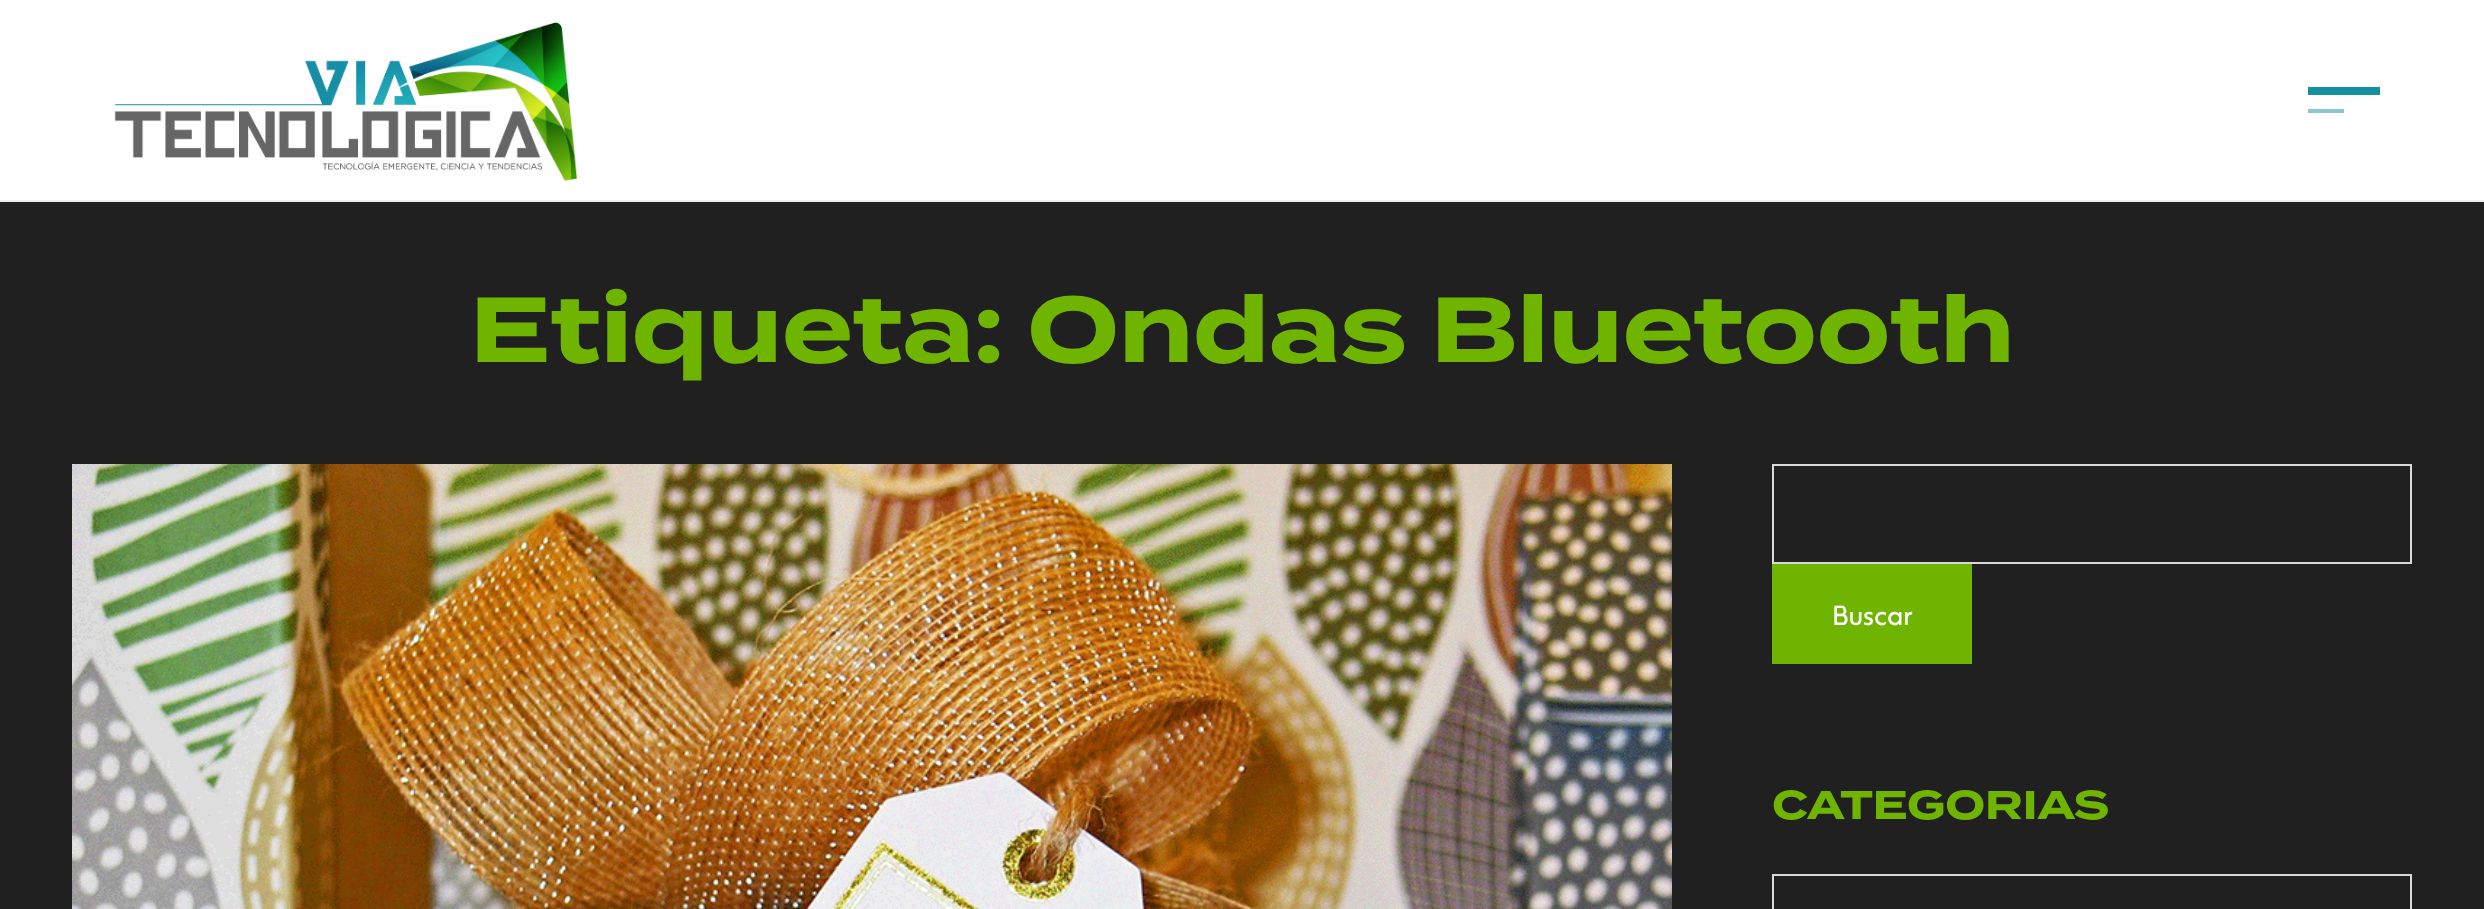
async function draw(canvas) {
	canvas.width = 2484;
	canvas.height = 909;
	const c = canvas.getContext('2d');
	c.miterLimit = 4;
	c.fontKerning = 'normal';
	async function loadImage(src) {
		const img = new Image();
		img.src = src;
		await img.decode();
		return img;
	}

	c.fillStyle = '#202020';
	c.fillRect(0, 0, 2484, 909);
	c.fillStyle = '#fff';
	c.fillRect(0, 0, 2484, 200);
	c.drawImage(await loadImage('img1.png'), 114, 22, 464, 159);
	for (const [x, y, w, h, color] of [
		[2308, 87, 72, 8, '#1490a1'],
		[2308, 109, 36, 4, '#8ac8d0'],
		[0, 200, 2484, 2, '#eee'],
	]) {
		c.fillStyle = color;
		c.fillRect(x, y, w, h);
	}
	c.font = 'bold 92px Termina';
	c.fillStyle = '#6fb500';
	c.fillText('Etiqueta: Ondas Bluetooth', 470, 362);
	c.drawImage(await loadImage('img2.png'), 72, 464, 1600, 445);
	c.strokeStyle = '#d9d9d9';
	c.lineWidth = 2;
	c.strokeRect(1773, 465, 638, 98);
	c.fillRect(1772, 564, 200, 100);
	c.font = '300 28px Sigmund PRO';
	c.fillStyle = '#fff';
	c.fillText('Buscar', 1832, 625);
	c.font = 'bold 40px Termina';
	c.fillStyle = '#6fb500';
	c.fillText('CATEGORIAS', 1772, 819);
	c.strokeRect(1773, 875, 638, 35);
}

draw(document.querySelector('canvas'));
